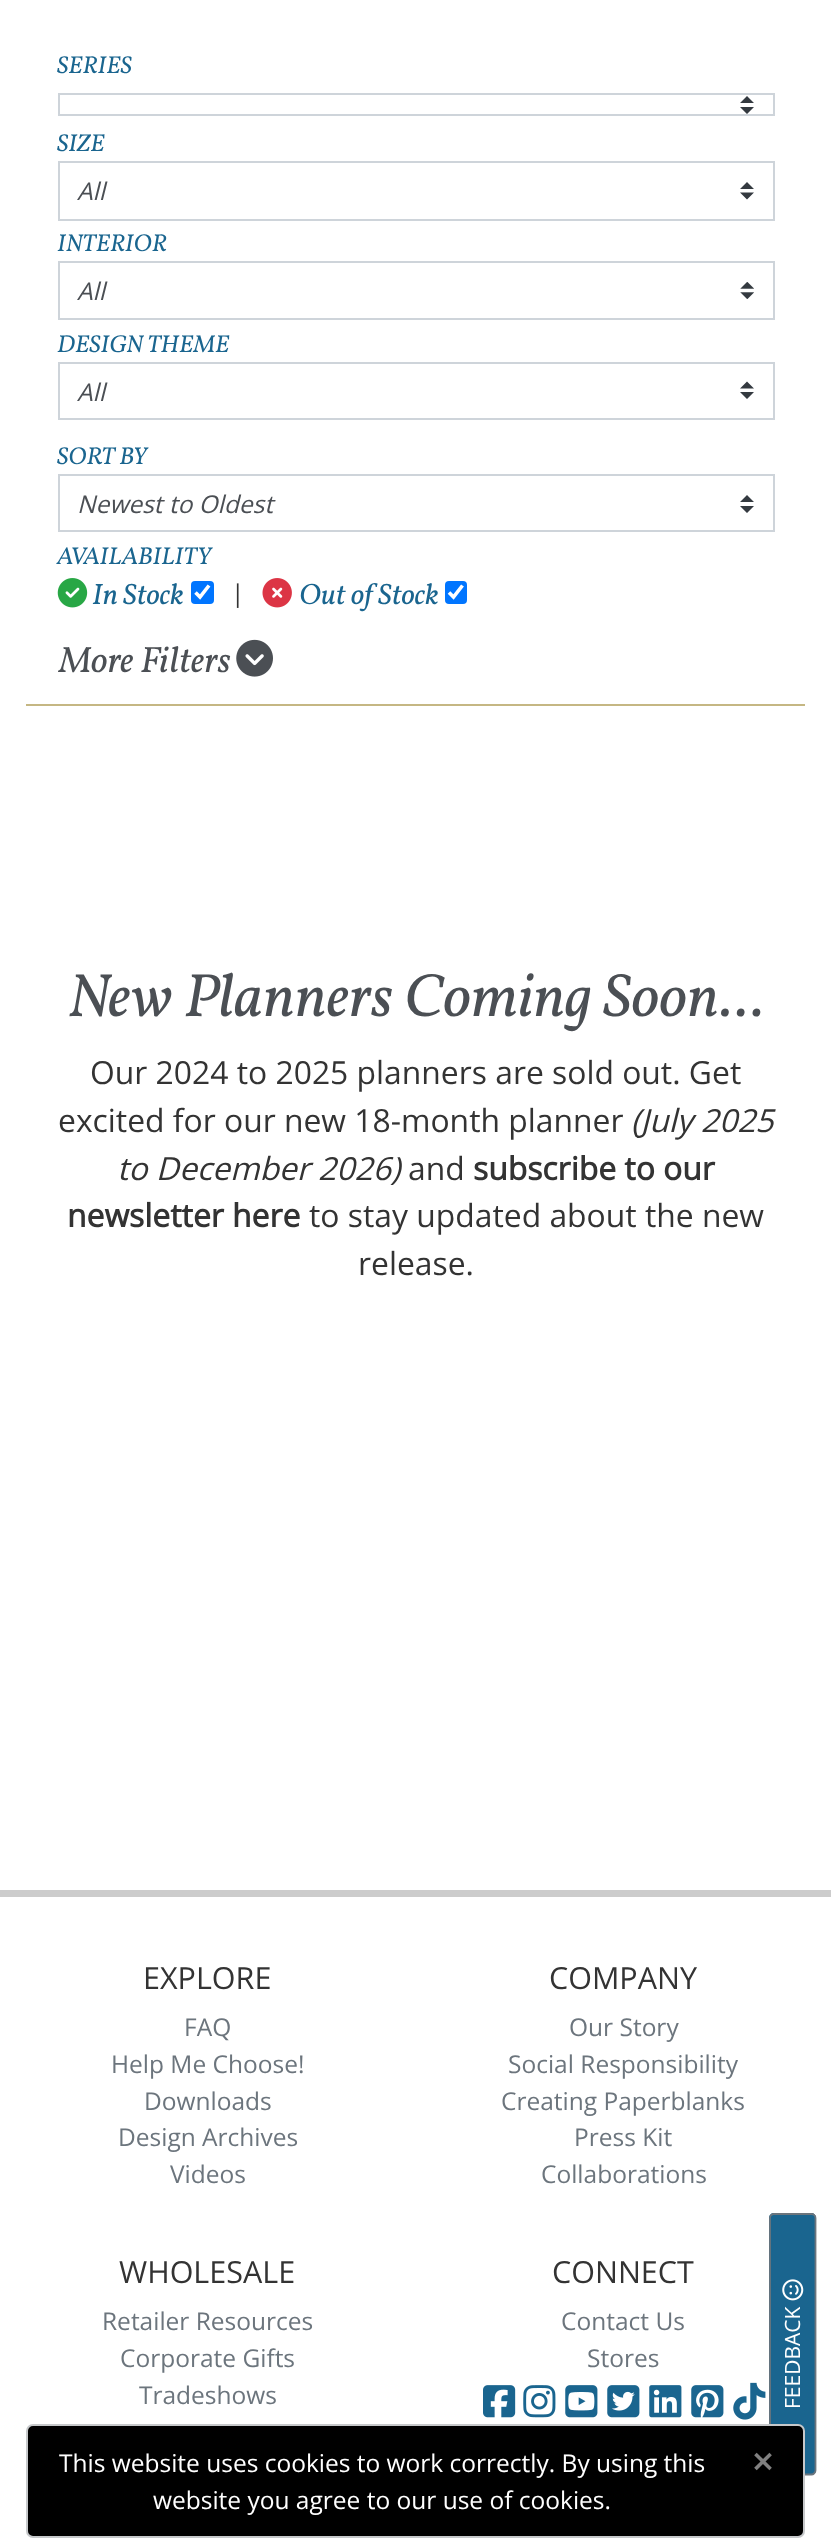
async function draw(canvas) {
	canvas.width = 831;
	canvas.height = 2542;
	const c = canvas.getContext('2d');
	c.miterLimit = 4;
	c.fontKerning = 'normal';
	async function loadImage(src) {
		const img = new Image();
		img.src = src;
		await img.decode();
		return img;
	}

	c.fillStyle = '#fff';
	c.fillRect(0, 0, 831, 2542);
	c.fillStyle = '#c5b783';
	c.fillRect(26, 704, 779, 2);
	c.font = 'italic 24.5px Vollkorn';
	c.fillStyle = '#1a658f';
	c.fillText('SERIES', 57, 73);
	c.fillStyle = '#343a40';
	c.beginPath();
	c.moveTo(747, 96);
	c.lineTo(740, 103);
	c.lineTo(754, 103);
	c.closePath();
	c.moveTo(747, 114);
	c.lineTo(740, 107);
	c.lineTo(754, 107);
	c.closePath();
	c.fill();
	c.strokeStyle = '#ced4da';
	c.lineWidth = 2;
	c.strokeRect(59, 94, 715, 21);
	c.fillStyle = '#1a658f';
	c.fillText('SIZE', 57, 151);
	c.fillStyle = '#343a40';
	c.beginPath();
	c.moveTo(747, 182);
	c.lineTo(740, 189);
	c.lineTo(754, 189);
	c.closePath();
	c.moveTo(747, 199.5);
	c.lineTo(740, 192.5);
	c.lineTo(754, 192.5);
	c.closePath();
	c.fill();
	c.strokeRect(59, 162, 715, 58);
	c.font = 'italic 24.5px Open Sans';
	c.fillStyle = '#4b4f54';
	c.fillText('All', 77, 200);
	c.font = 'italic 24.5px Vollkorn';
	c.fillStyle = '#1a658f';
	c.fillText('INTERIOR', 57, 251);
	c.drawImage(await loadImage('img1.png'), 740, 282, 14, 17);
	c.strokeRect(59, 262, 715, 57);
	c.font = 'italic 24.5px Open Sans';
	c.fillStyle = '#4b4f54';
	c.fillText('All', 77, 300);
	c.font = 'italic 24.5px Vollkorn';
	c.fillStyle = '#1a658f';
	c.fillText('DESIGN THEME', 57, 352);
	c.fillStyle = '#343a40';
	c.beginPath();
	c.moveTo(747, 381.5);
	c.lineTo(740, 388.5);
	c.lineTo(754, 388.5);
	c.closePath();
	c.moveTo(747, 399);
	c.lineTo(740, 392);
	c.lineTo(754, 392);
	c.closePath();
	c.fill();
	c.strokeRect(59, 363, 715, 56);
	c.font = 'italic 24.5px Open Sans';
	c.fillStyle = '#4b4f54';
	c.fillText('All', 77, 401);
	c.font = 'italic 24.5px Vollkorn';
	c.fillStyle = '#1a658f';
	c.fillText('SORT BY', 57, 464);
	c.fillStyle = '#343a40';
	c.beginPath();
	c.moveTo(747, 495);
	c.lineTo(740, 502);
	c.lineTo(754, 502);
	c.closePath();
	c.moveTo(747, 513);
	c.lineTo(740, 506);
	c.lineTo(754, 506);
	c.closePath();
	c.fill();
	c.strokeRect(59, 475, 715, 56);
	c.font = 'italic 24.5px Open Sans';
	c.fillStyle = '#4b4f54';
	c.fillText('Newest to Oldest', 77, 513);
	c.font = 'italic 24.5px Vollkorn';
	c.fillStyle = '#1a658f';
	c.fillText('AVAILABILITY', 57, 564);
	c.drawImage(await loadImage('img2.png'), 57, 578, 31, 30);
	c.font = 'italic 29.5px Vollkorn';
	c.fillText('In Stock', 92, 604);
	c.fillStyle = '#0075ff';
	c.beginPath();
	c.roundRect(191, 581, 23, 23, 4);
	c.fill();
	c.beginPath();
	c.moveTo(195.5, 592.5);
	c.lineTo(200, 597);
	c.lineTo(209, 585.5);
	c.strokeStyle = '#fff';
	c.lineWidth = 3.6;
	c.stroke();
	c.font = '24.5px Open Sans';
	c.fillStyle = '#333';
	c.fillText('|', 231, 602);
	c.drawImage(await loadImage('img3.png'), 262, 578, 30, 30);
	c.font = 'italic 29.5px Vollkorn';
	c.fillStyle = '#1a658f';
	c.fillText('Out of Stock', 299, 604);
	c.fillStyle = '#0075ff';
	c.beginPath();
	c.roundRect(445, 581, 22, 23, 4);
	c.fill();
	c.beginPath();
	c.moveTo(449, 592.5);
	c.lineTo(453.5, 597);
	c.lineTo(462.5, 585.5);
	c.stroke();
	c.font = 'italic 36.75px Vollkorn';
	c.fillStyle = '#4b4f54';
	c.fillText('More Filters', 59, 672);
	c.drawImage(await loadImage('img4.png'), 236, 639, 37, 38);
	c.font = 'italic 61.25px Vollkorn';
	c.fillText('New Planners Coming Soon...', 68, 1016);
	c.font = '31.85px Open Sans';
	c.fillStyle = '#333';
	c.fillText('Our 2024 to 2025 planners are sold out. Get', 90, 1084);
	c.fillText('excited for our new 18-month planner', 58, 1132);
	c.font = 'italic 31.85px Open Sans';
	c.fillText('(July 2025', 631, 1132);
	c.fillText('to December 2026)', 117, 1180);
	c.font = '31.85px Open Sans';
	c.fillText('and', 408, 1180);
	c.font = 'bold 31.85px Open Sans';
	c.fillText('subscribe to our', 473, 1180);
	c.fillText('newsletter here', 67, 1227);
	c.font = '31.85px Open Sans';
	c.fillText('to stay updated about the new', 309, 1227);
	c.fillText('release.', 358, 1275);
	c.fillStyle = '#1a658f';
	c.beginPath();
	c.moveTo(769, 2470);
	c.lineTo(769, 2218);
	c.bezierCurveTo(769, 2215, 771, 2213, 774, 2213);
	c.lineTo(811, 2213);
	c.bezierCurveTo(814, 2213, 816, 2215, 816, 2218);
	c.lineTo(816, 2470);
	c.bezierCurveTo(816, 2473, 814, 2475, 811, 2475);
	c.lineTo(774, 2475);
	c.bezierCurveTo(771, 2475, 769, 2473, 769, 2470);
	c.closePath();
	c.fill();
	c.beginPath();
	c.moveTo(770, 2470.5);
	c.lineTo(770, 2218);
	c.bezierCurveTo(770, 2215.5, 772, 2214, 774, 2214);
	c.lineTo(811.5, 2214);
	c.bezierCurveTo(813.5, 2214, 815.5, 2215.5, 815.5, 2218);
	c.lineTo(815.5, 2470.5);
	c.bezierCurveTo(815.5, 2472.5, 813.5, 2474.5, 811.5, 2474.5);
	c.lineTo(774, 2474.5);
	c.bezierCurveTo(772, 2474.5, 770, 2472.5, 770, 2470.5);
	c.closePath();
	c.strokeStyle = '#6c757d';
	c.lineWidth = 1.8;
	c.stroke();
	c.drawImage(await loadImage('img5.png'), 782, 2279, 22, 22);
	c.font = '21px Open Sans';
	c.fillStyle = '#fff';
	c.save();
	c.translate(800, 2409);
	c.rotate(-90 * Math.PI / 180);
	c.fillText('FEEDBACK', 0, 0);
	c.restore();
	c.fillStyle = '#000';
	c.beginPath();
	c.roundRect(27, 2425, 777, 112, 6);
	c.fill();
	c.strokeStyle = '#c6c8ca';
	c.lineWidth = 2;
	c.stroke();
	c.font = '24.5px Open Sans';
	c.fillStyle = '#fff';
	c.fillText('This website uses cookies to work correctly. By using this', 59, 2472);
	c.font = 'bold 36.75px Open Sans';
	c.fillStyle = '#808080';
	c.fillText('×', 752, 2475);
	c.font = '24.5px Open Sans';
	c.fillStyle = '#fff';
	c.fillText('website you agree to our use of cookies.', 153, 2509);
	c.fillStyle = '#ccc';
	c.fillRect(0, 1890, 831, 7);
	c.font = '30.5px Open Sans';
	c.fillStyle = '#333';
	c.fillText('EXPLORE', 143, 1989);
	c.font = '24.5px Open Sans';
	c.fillStyle = '#6c757d';
	for (const [text, x, y] of [
		['FAQ', 184, 2036],
		['Help Me Choose!', 111, 2073],
		['Downloads', 144, 2110],
		['Design Archives', 118, 2146],
		['Videos', 170, 2183],
	]) {
		c.fillText(text, x, y);
	}
	c.font = '30.5px Open Sans';
	c.fillStyle = '#333';
	c.fillText('COMPANY', 549, 1989);
	c.font = '24.5px Open Sans';
	c.fillStyle = '#6c757d';
	for (const [text, x, y] of [
		['Our Story', 569, 2036],
		['Social Responsibility', 508, 2073],
		['Creating Paperblanks', 501, 2110],
		['Press Kit', 574, 2146],
		['Collaborations', 541, 2183],
	]) {
		c.fillText(text, x, y);
	}
	c.font = '30.5px Open Sans';
	c.fillStyle = '#333';
	c.fillText('WHOLESALE', 119, 2283);
	c.font = '24.5px Open Sans';
	c.fillStyle = '#6c757d';
	for (const [text, x, y] of [
		['Retailer Resources', 102, 2330],
		['Corporate Gifts', 120, 2367],
		['Tradeshows', 139, 2404],
	]) {
		c.fillText(text, x, y);
	}
	c.font = '30.5px Open Sans';
	c.fillStyle = '#333';
	c.fillText('CONNECT', 552, 2283);
	c.font = '24.5px Open Sans';
	c.fillStyle = '#6c757d';
	c.fillText('Contact Us', 561, 2330);
	c.fillText('Stores', 587, 2367);
	c.drawImage(await loadImage('img6.png'), 483, 2385, 33, 33);
	c.drawImage(await loadImage('img7.png'), 523, 2385, 33, 33);
	c.drawImage(await loadImage('img8.png'), 565, 2385, 33, 33);
	c.drawImage(await loadImage('img9.png'), 607, 2385, 33, 33);
	c.drawImage(await loadImage('img10.png'), 649, 2385, 33, 33);
	c.drawImage(await loadImage('img11.png'), 691, 2385, 33, 33);
	c.drawImage(await loadImage('img12.png'), 733, 2382, 33, 38);
}

draw(document.querySelector('canvas'));
